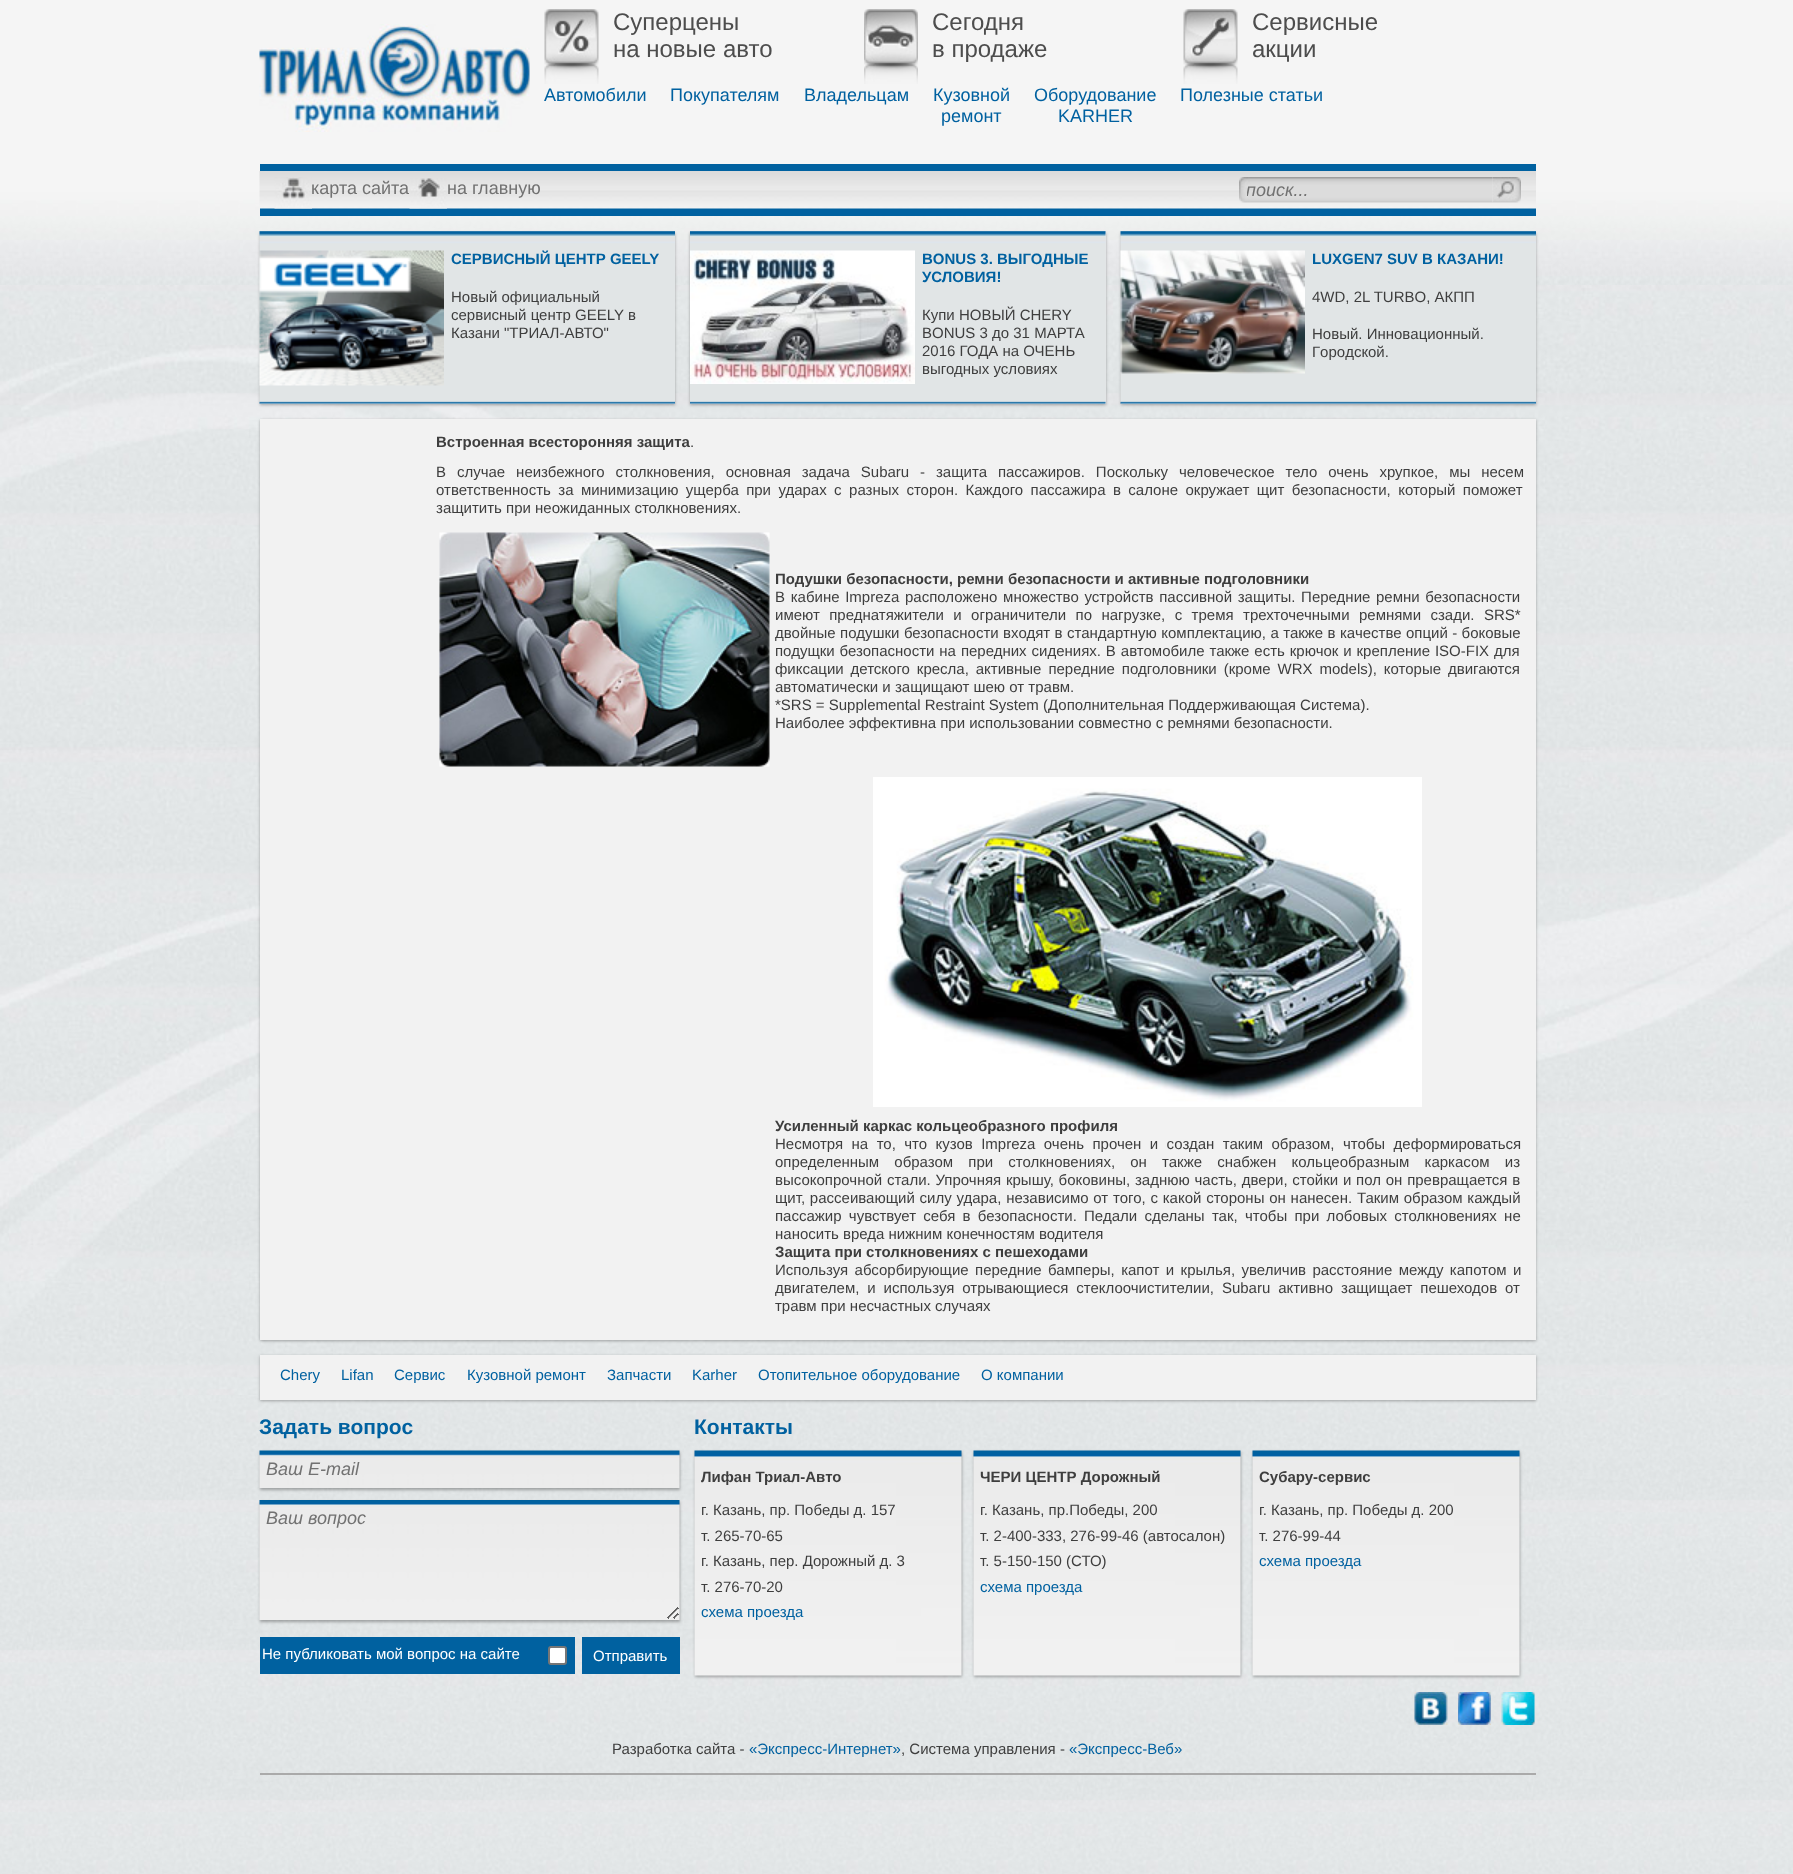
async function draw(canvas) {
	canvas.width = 1793;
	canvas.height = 1874;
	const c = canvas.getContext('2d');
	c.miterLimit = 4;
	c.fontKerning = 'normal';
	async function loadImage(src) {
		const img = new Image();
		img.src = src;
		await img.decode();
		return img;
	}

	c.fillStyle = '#fff';
	c.fillRect(0, 0, 1793, 1874);
	c.drawImage(await loadImage('img1.png'), 0, 1395, 1793, 479);
	c.drawImage(await loadImage('img2.png'), 0, 0, 1793, 285);
	c.drawImage(await loadImage('img3.png'), 0, 285, 1793, 1110);
	c.drawImage(await loadImage('img4.png'), 259, 24, 271, 108);
	c.drawImage(await loadImage('img5.png'), 544, 9, 55, 75);
	c.font = '24px Liberation Sans';
	c.fillStyle = '#4d4d4d';
	c.fillText('Суперцены', 613, 30);
	c.fillText('на новые авто', 613, 57);
	c.drawImage(await loadImage('img6.png'), 864, 9, 54, 75);
	c.fillText('Сегодня', 932, 30);
	c.fillText('в продаже', 932, 57);
	c.drawImage(await loadImage('img7.png'), 1183, 9, 55, 75);
	c.fillText('Сервисные', 1252, 30);
	c.fillText('акции', 1252, 57);
	c.font = '18px Liberation Sans';
	c.fillStyle = '#0061a0';
	for (const [text, x, y] of [
		['Автомобили', 544, 101],
		['Покупателям', 670, 101],
		['Владельцам', 804, 101],
		['Кузовной', 933, 101],
		['ремонт', 941, 122],
		['Оборудование', 1034, 101],
		['KARHER', 1058, 122],
		['Полезные статьи', 1180, 101],
	]) {
		c.fillText(text, x, y);
	}
	c.fillRect(260, 164, 1276, 52);
	c.drawImage(await loadImage('img8.png'), 259, 171, 1277, 38);
	c.drawImage(await loadImage('img9.png'), 274, 177, 38, 32);
	c.fillStyle = '#727272';
	c.fillText('карта сайта', 311, 194);
	c.drawImage(await loadImage('img10.png'), 409, 178, 38, 31);
	c.fillText('на главную', 447, 194);
	c.drawImage(await loadImage('img11.png'), 1239, 177, 254, 26);
	c.save();
	c.beginPath();
	c.rect(1247, 180, 246, 21);
	c.clip();
	c.font = 'italic 18px Liberation Sans';
	c.fillText('поиск...', 1246, 196);
	c.restore();
	c.drawImage(await loadImage('img12.png'), 1492, 177, 29, 26);
	c.fillStyle = '#0000004d';
	c.filter = 'blur(1.5px)';
	c.beginPath();
	c.rect(260, 233, 415, 172);
	c.fill();
	c.filter = 'none';
	c.fillStyle = '#e2e5e6';
	c.fillRect(260, 403, 415, 1);
	c.drawImage(await loadImage('img13.png'), 259, 231, 416, 173);
	c.drawImage(await loadImage('img14.png'), 259, 250, 185, 136);
	c.font = 'bold 15px Liberation Sans';
	c.fillStyle = '#0061a0';
	c.fillText('СЕРВИСНЫЙ ЦЕНТР GEELY', 451, 264);
	c.font = '15px Liberation Sans';
	c.fillStyle = '#3e3e3e';
	for (const [text, x, y] of [
		['Новый официальный', 451, 302],
		['сервисный центр GEELY в', 451, 320],
		['Казани "ТРИАЛ-АВТО"', 451, 338],
	]) {
		c.fillText(text, x, y);
	}
	c.fillStyle = '#0000004d';
	c.filter = 'blur(1.5px)';
	c.beginPath();
	c.rect(690, 233, 416, 172);
	c.fill();
	c.filter = 'none';
	c.fillStyle = '#e2e5e6';
	c.fillRect(690, 231, 416, 173);
	c.drawImage(await loadImage('img15.png'), 690, 231, 416, 173);
	c.drawImage(await loadImage('img16.png'), 690, 250, 225, 134);
	c.font = 'bold 15px Liberation Sans';
	c.fillStyle = '#0061a0';
	c.fillText('BONUS 3. ВЫГОДНЫЕ', 922, 264);
	c.fillText('УСЛОВИЯ!', 922, 282);
	c.font = '15px Liberation Sans';
	c.fillStyle = '#3e3e3e';
	for (const [text, x, y] of [
		['Купи НОВЫЙ CHERY', 922, 320],
		['BONUS 3 до 31 МАРТА', 922, 338],
		['2016 ГОДА на ОЧЕНЬ', 922, 356],
		['выгодных условиях', 922, 374],
	]) {
		c.fillText(text, x, y);
	}
	c.fillStyle = '#0000004d';
	c.filter = 'blur(1.5px)';
	c.beginPath();
	c.rect(1121, 233, 415, 172);
	c.fill();
	c.filter = 'none';
	c.fillStyle = '#e2e5e6';
	c.fillRect(1121, 403, 415, 1);
	c.drawImage(await loadImage('img17.png'), 1120, 231, 416, 173);
	c.drawImage(await loadImage('img18.png'), 1120, 250, 185, 124);
	c.font = 'bold 15px Liberation Sans';
	c.fillStyle = '#0061a0';
	c.fillText('LUXGEN7 SUV В КАЗАНИ!', 1312, 264);
	c.font = '15px Liberation Sans';
	c.fillStyle = '#3e3e3e';
	for (const [text, x, y] of [
		['4WD, 2L TURBО, AКПП', 1312, 302],
		['Нoвый. Иннoвaциoнный.', 1312, 339],
		['Гoрoдскoй.', 1312, 357],
	]) {
		c.fillText(text, x, y);
	}
	c.fillStyle = '#0000004d';
	c.filter = 'blur(1.5px)';
	c.beginPath();
	c.rect(260, 420, 1276, 921);
	c.fill();
	c.filter = 'none';
	c.fillStyle = '#f2f2f2';
	c.fillRect(260, 419, 1276, 921);
	c.font = 'bold 15px Liberation Sans';
	c.fillStyle = '#3e3e3e';
	c.fillText('Встроенная всесторонняя защита', 436, 447);
	c.font = '15px Liberation Sans';
	c.fillText('.', 690, 447);
	c.wordSpacing = '6.75px';
	c.fillText('В случае неизбежного столкновения, основная задача Subaru - защита пассажиров. Поскольку человеческое тело очень хрупкое, мы несем', 436, 477);
	c.wordSpacing = '3.25px';
	c.fillText('ответственность за минимизацию ущерба при ударах с разных сторон. Каждого пассажира в салоне окружает щит безопасности, который поможет', 436, 495);
	c.wordSpacing = '0px';
	c.fillText('защитить при неожиданных столкновениях.', 436, 513);
	c.drawImage(await loadImage('img19.png'), 439, 532, 331, 235);
	c.font = 'bold 15px Liberation Sans';
	c.fillText('Подушки безопасности, ремни безопасности и активные подголовники', 775, 584);
	c.wordSpacing = '1.5px';
	c.font = '15px Liberation Sans';
	c.fillText('В кабине Impreza расположено множество устройств пассивной защиты. Передние ремни безопасности', 775, 602);
	c.wordSpacing = '5.25px';
	c.fillText('имеют преднатяжители и ограничители по нагрузке, с тремя трехточечными ремнями сзади. SRS*', 775, 620);
	c.wordSpacing = '0.25px';
	c.fillText('двойные подушки безопасности входят в стандартную комплектацию, а также в качестве опций - боковые', 775, 638);
	c.wordSpacing = '0.75px';
	c.fillText('подущки безопасности на передних сидениях. В автомобиле также есть крючок и крепление ISO-FIX для', 775, 656);
	c.wordSpacing = '2.75px';
	c.fillText('фиксации детского кресла, активные передние подголовники (кроме WRX models), которые двигаются', 775, 674);
	c.wordSpacing = '0px';
	for (const [text, x, y] of [
		['автоматически и защищают шею от травм.', 775, 692],
		['*SRS = Supplemental Restraint System (Дополнительная Поддерживающая Система).', 775, 710],
		['Наиболее эффективна при использовании совместно с ремнями безопасности.', 775, 728],
	]) {
		c.fillText(text, x, y);
	}
	c.drawImage(await loadImage('img20.png'), 873, 777, 549, 330);
	c.font = 'bold 15px Liberation Sans';
	c.fillText('Усиленный каркас кольцеобразного профиля', 775, 1131);
	c.wordSpacing = '4.25px';
	c.font = '15px Liberation Sans';
	c.fillText('Несмотря на то, что кузов Impreza очень прочен и создан таким образом, чтобы деформироваться', 775, 1149);
	c.wordSpacing = '11px';
	c.fillText('определенным образом при столкновениях, он также снабжен кольцеобразным каркасом из', 775, 1167);
	c.wordSpacing = '0.6px';
	c.fillText('высокопрочной стали. Упрочняя крышу, боковины, заднюю часть, двери, стойки и пол он превращается в', 775, 1185);
	c.fillText('щит, рассеивающий силу удара, независимо от того, с какой стороны он нанесен. Таким образом каждый', 775, 1203);
	c.wordSpacing = '3.1px';
	c.fillText('пассажир чувствует себя в безопасности. Педали сделаны так, чтобы при лобовых столкновениях не', 775, 1221);
	c.wordSpacing = '0px';
	c.fillText('наносить вреда нижним конечностям водителя', 775, 1239);
	c.font = 'bold 15px Liberation Sans';
	c.fillText('Защита при столкновениях с пешеходами', 775, 1257);
	c.wordSpacing = '2.25px';
	c.font = '15px Liberation Sans';
	c.fillText('Используя абсорбирующие передние бамперы, капот и крылья, увеличив расстояние между капотом и', 775, 1275);
	c.wordSpacing = '3.75px';
	c.fillText('двигателем, и используя отрывающиеся стеклоочистителии, Subaru активно защищает пешеходов от', 775, 1293);
	c.wordSpacing = '0px';
	c.fillText('травм при несчастных случаях', 775, 1311);
	c.fillStyle = '#0000004d';
	c.filter = 'blur(1.5px)';
	c.beginPath();
	c.rect(260, 1356, 1276, 45);
	c.fill();
	c.filter = 'none';
	c.fillStyle = '#f2f2f2';
	c.fillRect(260, 1355, 1276, 45);
	c.fillStyle = '#0061a0';
	for (const [text, x, y] of [
		['Chery', 280, 1380],
		['Lifan', 341, 1380],
		['Сервис', 394, 1380],
		['Кузовной ремонт', 467, 1380],
		['Запчасти', 607, 1380],
		['Karher', 692, 1380],
		['Отопительное оборудование', 758, 1380],
		['О компании', 981, 1380],
	]) {
		c.fillText(text, x, y);
	}
	c.font = 'bold 21px Liberation Sans';
	c.fillText('Задать вопрос', 259, 1434);
	c.fillStyle = '#0000004d';
	c.filter = 'blur(1.5px)';
	c.beginPath();
	c.rect(260, 1452, 420, 38);
	c.fill();
	c.filter = 'none';
	c.drawImage(await loadImage('img21.png'), 259, 1450, 421, 38);
	c.font = 'italic 18px Liberation Sans';
	c.fillStyle = '#727272';
	c.fillText('Ваш E-mail', 266, 1475);
	c.fillStyle = '#0000004d';
	c.filter = 'blur(1.5px)';
	c.beginPath();
	c.rect(260, 1502, 420, 120);
	c.fill();
	c.filter = 'none';
	c.drawImage(await loadImage('img22.png'), 259, 1500, 421, 120);
	c.fillStyle = '#727272';
	c.fillText('Ваш вопрос', 266, 1524);
	c.fillStyle = '#0061a0';
	c.fillRect(260, 1637, 315, 37);
	c.font = '15px Liberation Sans';
	c.fillStyle = '#fff';
	c.fillText('Не публиковать мой вопрос на сайте', 262, 1659);
	c.beginPath();
	c.roundRect(549, 1647, 17, 17, 2);
	c.fill();
	c.strokeStyle = '#767676';
	c.lineWidth = 2;
	c.stroke();
	c.fillStyle = '#0061a0';
	c.fillRect(582, 1637, 98, 37);
	c.fillStyle = '#fff';
	c.fillText('Отправить', 593, 1661);
	c.font = 'bold 21px Liberation Sans';
	c.fillStyle = '#0061a0';
	c.fillText('Контакты', 694, 1434);
	c.fillStyle = '#0000004d';
	c.filter = 'blur(1.5px)';
	c.beginPath();
	c.rect(695, 1452, 267, 225);
	c.fill();
	c.filter = 'none';
	c.drawImage(await loadImage('img23.png'), 694, 1450, 268, 226);
	c.font = 'bold 15px Liberation Sans';
	c.fillStyle = '#3e3e3e';
	c.fillText('Лифан Триал-Авто', 701, 1482);
	c.font = '15px Liberation Sans';
	for (const [text, x, y] of [
		['г. Казань, пр. Победы д. 157', 701, 1515],
		['т. 265-70-65', 701, 1541],
		['г. Казань, пер. Дорожный д. 3', 701, 1566],
		['т. 276-70-20', 701, 1592],
	]) {
		c.fillText(text, x, y);
	}
	c.fillStyle = '#0061a0';
	c.fillText('схема проезда', 701, 1617);
	c.fillStyle = '#0000004d';
	c.filter = 'blur(1.5px)';
	c.beginPath();
	c.rect(974, 1452, 267, 225);
	c.fill();
	c.filter = 'none';
	c.drawImage(await loadImage('img24.png'), 973, 1450, 268, 226);
	c.font = 'bold 15px Liberation Sans';
	c.fillStyle = '#3e3e3e';
	c.fillText('ЧЕРИ ЦЕНТР Дорожный', 980, 1482);
	c.font = '15px Liberation Sans';
	for (const [text, x, y] of [
		['г. Казань, пр.Победы, 200', 980, 1515],
		['т. 2-400-333, 276-99-46 (автосалон)', 980, 1541],
		['т. 5-150-150 (СТО)', 980, 1566],
	]) {
		c.fillText(text, x, y);
	}
	c.fillStyle = '#0061a0';
	c.fillText('схема проезда', 980, 1592);
	c.fillStyle = '#0000004d';
	c.filter = 'blur(1.5px)';
	c.beginPath();
	c.rect(1253, 1452, 267, 225);
	c.fill();
	c.filter = 'none';
	c.drawImage(await loadImage('img25.png'), 1252, 1450, 268, 226);
	c.font = 'bold 15px Liberation Sans';
	c.fillStyle = '#3e3e3e';
	c.fillText('Субару-сервис', 1259, 1482);
	c.font = '15px Liberation Sans';
	c.fillText('г. Казань, пр. Победы д. 200', 1259, 1515);
	c.fillText('т. 276-99-44', 1259, 1541);
	c.fillStyle = '#0061a0';
	c.fillText('схема проезда', 1259, 1566);
	c.drawImage(await loadImage('img26.png'), 1414, 1692, 34, 33);
	c.drawImage(await loadImage('img27.png'), 1458, 1692, 33, 33);
	c.drawImage(await loadImage('img28.png'), 1501, 1692, 34, 33);
	c.fillStyle = '#aaa';
	c.fillRect(260, 1773, 1276, 2);
	c.fillStyle = '#3e3e3e';
	c.fillText('Разработка сайта -', 612, 1754);
	c.fillStyle = '#0061a0';
	c.fillText('«Экспресс-Интернет»', 749, 1754);
	c.fillStyle = '#3e3e3e';
	c.fillText(', Система управления -', 901, 1754);
	c.fillStyle = '#0061a0';
	c.fillText('«Экспресс-Веб»', 1069, 1754);
}

draw(document.querySelector('canvas'));
